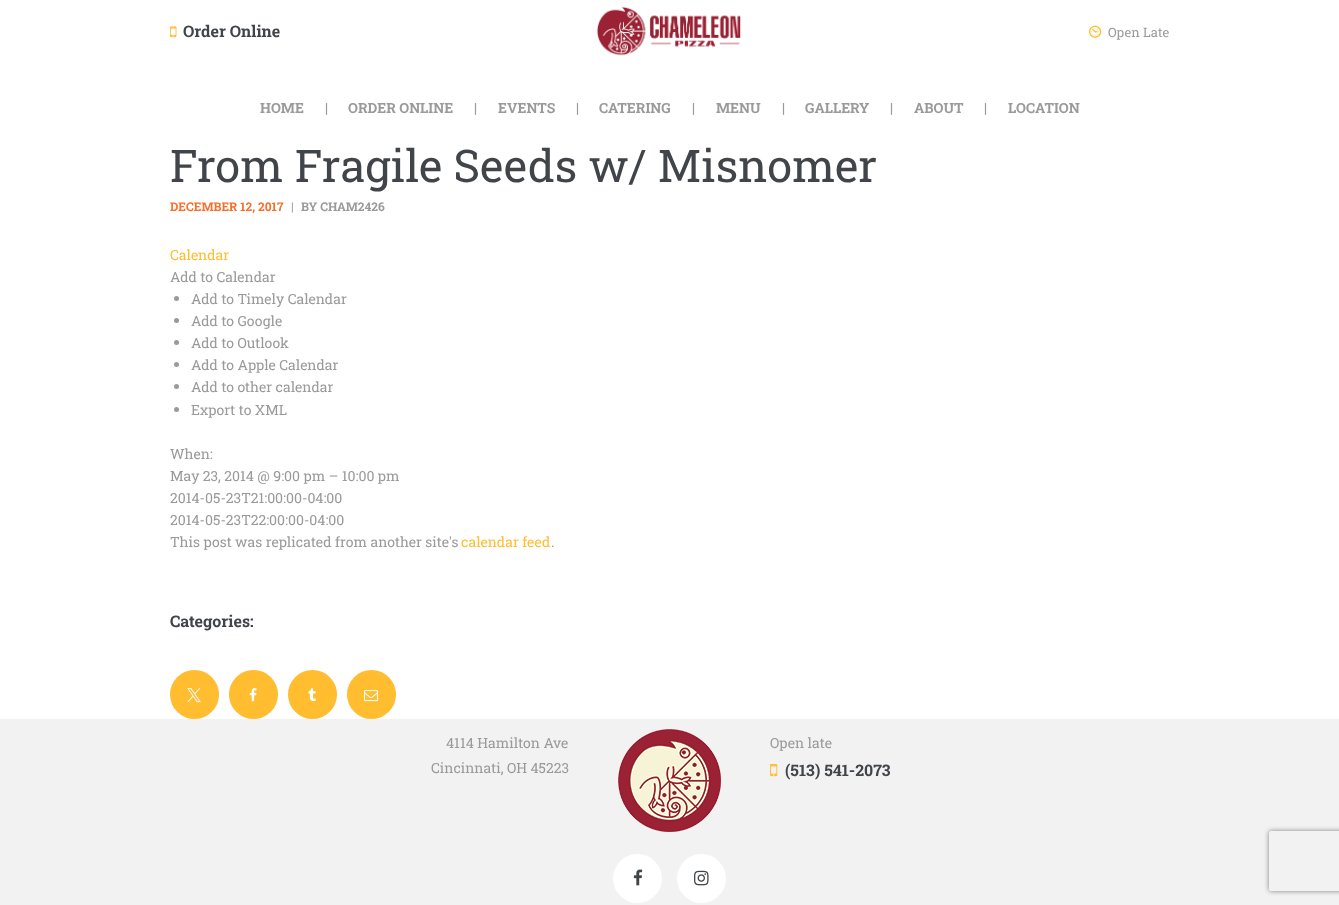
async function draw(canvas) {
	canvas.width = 1339;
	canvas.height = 905;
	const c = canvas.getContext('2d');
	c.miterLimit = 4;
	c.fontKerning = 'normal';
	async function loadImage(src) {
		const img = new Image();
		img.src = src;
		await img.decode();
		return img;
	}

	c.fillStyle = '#fff';
	c.fillRect(0, 0, 1339, 905);
	c.drawImage(await loadImage('img1.png'), 170, 26, 7, 12);
	c.font = 'bold 16px Roboto Slab';
	c.fillStyle = '#414549';
	c.fillText('Order Online', 183, 37);
	c.drawImage(await loadImage('img2.png'), 593, 2, 153, 58);
	c.drawImage(await loadImage('img3.png'), 1089, 25, 13, 13);
	c.font = '13px Roboto Slab';
	c.fillStyle = '#9a9a9a';
	c.fillText('Open Late', 1108, 37);
	c.font = 'bold 14px Roboto Slab';
	for (const [text, x, y] of [
		['HOME', 260, 113],
		['|', 325, 113],
		['ORDER ONLINE', 348, 113],
		['|', 474, 113],
		['EVENTS', 498, 113],
		['|', 576, 113],
		['CATERING', 599, 113],
		['|', 692, 113],
		['MENU', 716, 113],
		['|', 782, 113],
		['GALLERY', 805, 113],
		['|', 890, 113],
		['ABOUT', 914, 113],
		['|', 984, 113],
		['LOCATION', 1008, 113],
	]) {
		c.fillText(text, x, y);
	}
	c.font = '45px Roboto Slab';
	c.fillStyle = '#414549';
	c.fillText('From Fragile Seeds w/ Misnomer', 170, 182);
	c.font = 'bold 12px Roboto Slab';
	c.fillStyle = '#f76f2a';
	c.fillText('DECEMBER 12, 2017', 170, 211);
	c.font = '12px Roboto Slab';
	c.fillStyle = '#9a9a9a';
	c.fillText('|', 291, 211);
	c.font = 'bold 12px Roboto Slab';
	c.fillText('BY CHAM2426', 301, 211);
	c.font = '14px Roboto Slab';
	c.fillStyle = '#ffbd2f';
	c.fillText('Calendar', 170, 260);
	c.fillStyle = '#9a9a9a';
	c.fillText('Add to Calendar', 170, 282);
	c.beginPath();
	c.arc(176.5, 298.5, 2.5, 0, 2 * Math.PI);
	c.fill();
	c.fillText('Add to Timely Calendar', 191, 304);
	c.beginPath();
	c.arc(176.5, 320.5, 2.5, 0, 2 * Math.PI);
	c.fill();
	c.fillText('Add to Google', 191, 326);
	c.beginPath();
	c.arc(176.5, 342.5, 2.5, 0, 2 * Math.PI);
	c.fill();
	c.fillText('Add to Outlook', 191, 348);
	c.beginPath();
	c.arc(176.5, 364.5, 2.5, 0, 2 * Math.PI);
	c.fill();
	c.fillText('Add to Apple Calendar', 191, 370);
	c.beginPath();
	c.arc(176.5, 386.5, 2.5, 0, 2 * Math.PI);
	c.fill();
	c.fillText('Add to other calendar', 191, 392);
	c.beginPath();
	c.arc(176.5, 409.5, 2.5, 0, 2 * Math.PI);
	c.fill();
	for (const [text, x, y] of [
		['Export to XML', 191, 415],
		['When:', 170, 459],
		['May 23, 2014 @ 9:00 pm – 10:00 pm', 170, 481],
		['2014-05-23T21:00:00-04:00', 170, 503],
		['2014-05-23T22:00:00-04:00', 170, 525],
		['This post was replicated from another site\'s', 170, 547],
	]) {
		c.fillText(text, x, y);
	}
	c.fillStyle = '#ffbd2f';
	c.fillText('calendar feed', 461, 547);
	c.fillStyle = '#9a9a9a';
	c.fillText('.', 551, 547);
	c.font = 'bold 16px Roboto Slab';
	c.fillStyle = '#414549';
	c.fillText('Categories:', 170, 627);
	c.fillStyle = '#ffbd2f';
	c.beginPath();
	c.arc(194.5, 694.5, 24.5, 0, 2 * Math.PI);
	c.fill();
	c.drawImage(await loadImage('img4.png'), 187, 688, 14, 15);
	c.beginPath();
	c.arc(253.5, 694.5, 24.5, 0, 2 * Math.PI);
	c.fill();
	c.drawImage(await loadImage('img5.png'), 249, 688, 8, 14);
	c.beginPath();
	c.arc(312.5, 694.5, 24.5, 0, 2 * Math.PI);
	c.fill();
	c.drawImage(await loadImage('img6.png'), 308, 688, 8, 14);
	c.beginPath();
	c.arc(371.5, 694.5, 24.5, 0, 2 * Math.PI);
	c.fill();
	c.drawImage(await loadImage('img7.png'), 364, 690, 14, 12);
	c.fillStyle = '#f2f2f2';
	c.fillRect(0, 719, 1339, 186);
	c.font = '14px Roboto Slab';
	c.fillStyle = '#9a9a9a';
	c.fillText('4114 Hamilton Ave', 446, 748);
	c.fillText('Cincinnati, OH 45223', 431, 773);
	c.drawImage(await loadImage('img8.png'), 618, 729, 103, 103);
	c.fillText('Open late', 770, 748);
	c.drawImage(await loadImage('img9.png'), 770, 764, 8, 13);
	c.font = 'bold 16px Roboto Slab';
	c.fillStyle = '#414549';
	c.fillText('(513) 541-2073', 785, 776);
	c.fillStyle = '#fff';
	c.beginPath();
	c.arc(637.5, 878.5, 24.5, 0, 2 * Math.PI);
	c.fill();
	c.drawImage(await loadImage('img10.png'), 633, 869, 10, 17);
	c.beginPath();
	c.arc(701.5, 878.5, 24.5, 0, 2 * Math.PI);
	c.fill();
	c.drawImage(await loadImage('img11.png'), 694, 870, 15, 16);
	c.save();
	c.beginPath();
	c.moveTo(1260, 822);
	c.lineTo(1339, 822);
	c.lineTo(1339, 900);
	c.lineTo(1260, 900);
	c.closePath();
	c.moveTo(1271, 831);
	c.lineTo(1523, 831);
	c.bezierCurveTo(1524, 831, 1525, 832, 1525, 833);
	c.lineTo(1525, 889);
	c.bezierCurveTo(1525, 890, 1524, 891, 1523, 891);
	c.lineTo(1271, 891);
	c.bezierCurveTo(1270, 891, 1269, 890, 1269, 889);
	c.lineTo(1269, 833);
	c.bezierCurveTo(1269, 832, 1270, 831, 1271, 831);
	c.closePath();
	c.clip('evenodd');
	c.fillStyle = '#808080';
	c.filter = 'blur(2.5px)';
	c.beginPath();
	c.roundRect(1269, 831, 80, 60, 2);
	c.fill();
	c.filter = 'none';
	c.restore();
}

draw(document.querySelector('canvas'));
